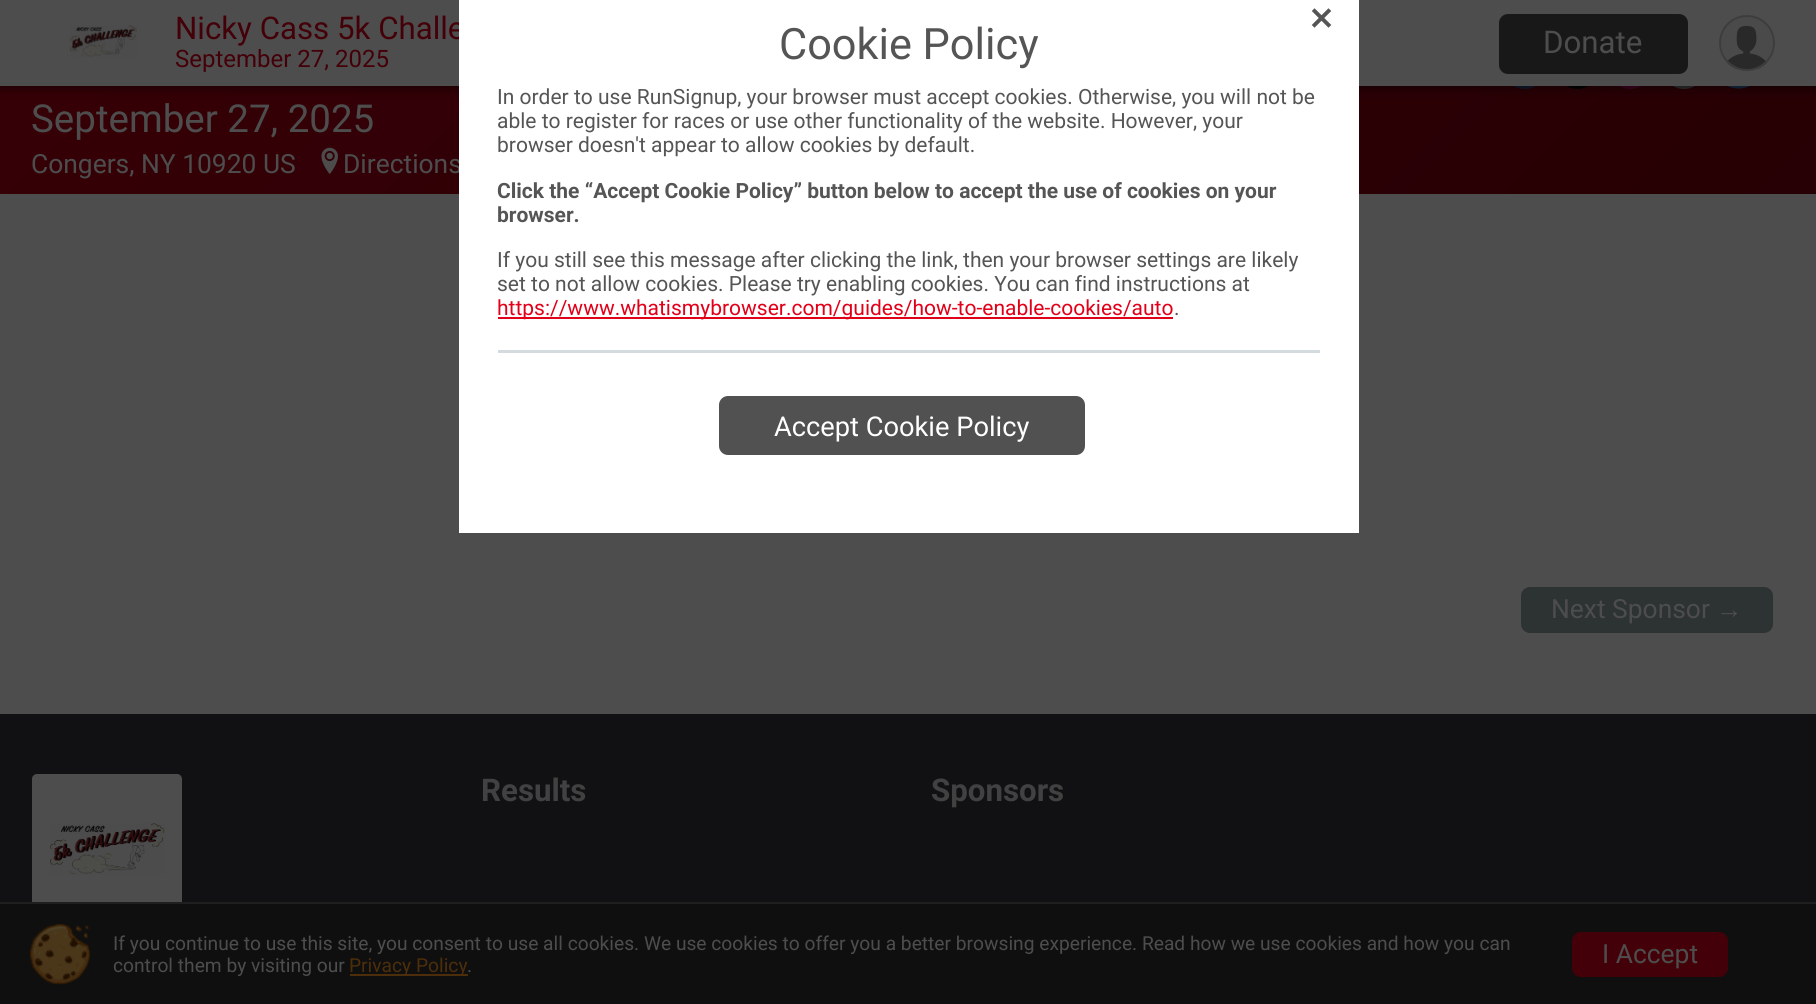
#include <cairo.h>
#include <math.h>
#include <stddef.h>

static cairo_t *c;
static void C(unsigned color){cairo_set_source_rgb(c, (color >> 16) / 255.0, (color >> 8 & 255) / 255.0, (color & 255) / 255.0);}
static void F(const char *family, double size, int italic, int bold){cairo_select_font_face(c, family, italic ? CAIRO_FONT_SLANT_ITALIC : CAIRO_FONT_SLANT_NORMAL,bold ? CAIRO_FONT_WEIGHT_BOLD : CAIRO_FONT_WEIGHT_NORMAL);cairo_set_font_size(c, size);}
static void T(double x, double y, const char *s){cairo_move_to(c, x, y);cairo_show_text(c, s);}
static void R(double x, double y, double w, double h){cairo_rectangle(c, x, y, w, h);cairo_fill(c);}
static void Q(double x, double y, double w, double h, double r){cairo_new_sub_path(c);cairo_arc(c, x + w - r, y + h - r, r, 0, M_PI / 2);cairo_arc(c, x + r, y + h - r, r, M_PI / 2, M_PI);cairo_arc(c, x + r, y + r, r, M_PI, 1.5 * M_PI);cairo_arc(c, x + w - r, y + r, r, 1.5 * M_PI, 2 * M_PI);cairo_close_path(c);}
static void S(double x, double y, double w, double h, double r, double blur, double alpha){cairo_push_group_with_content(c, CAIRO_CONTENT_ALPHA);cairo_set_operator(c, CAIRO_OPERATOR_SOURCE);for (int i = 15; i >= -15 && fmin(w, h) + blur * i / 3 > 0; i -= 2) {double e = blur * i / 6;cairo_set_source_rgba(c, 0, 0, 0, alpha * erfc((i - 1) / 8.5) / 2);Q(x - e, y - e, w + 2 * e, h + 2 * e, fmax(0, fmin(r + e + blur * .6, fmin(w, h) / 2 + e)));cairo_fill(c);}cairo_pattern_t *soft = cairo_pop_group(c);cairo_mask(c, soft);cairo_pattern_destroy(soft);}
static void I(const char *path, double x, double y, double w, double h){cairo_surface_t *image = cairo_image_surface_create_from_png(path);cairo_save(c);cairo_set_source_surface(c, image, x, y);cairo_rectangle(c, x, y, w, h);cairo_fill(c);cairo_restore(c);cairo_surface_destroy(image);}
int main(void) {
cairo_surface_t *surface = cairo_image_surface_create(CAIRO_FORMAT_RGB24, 1816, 1004);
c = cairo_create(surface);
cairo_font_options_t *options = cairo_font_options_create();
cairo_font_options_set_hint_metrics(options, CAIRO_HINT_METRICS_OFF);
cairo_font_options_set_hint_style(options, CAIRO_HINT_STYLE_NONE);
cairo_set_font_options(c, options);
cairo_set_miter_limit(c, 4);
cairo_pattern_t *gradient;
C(0x4d4d4d);
cairo_paint(c);
gradient = cairo_pattern_create_linear(1409,601,407,-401);
cairo_pattern_add_color_stop_rgba(gradient,0,0.149,0,0.016,1);
cairo_pattern_add_color_stop_rgba(gradient,1,0.212,0,0.024,1);
cairo_set_source(c,gradient);
cairo_pattern_destroy(gradient);
R(0,86,1816,108);
C(0x11192d);
Q(1503,44,44,45,22);
cairo_fill(c);
C(0x000000);
Q(1556,44,43,45,21.5);
cairo_fill(c);
C(0x40011f);
cairo_arc(c,1630.5,66.5,22.5,0,2 * M_PI);
cairo_fill(c);
C(0x2f2f2f);
Q(1662,44,44,45,22);
cairo_fill(c);
C(0x172c44);
cairo_new_path(c);
cairo_move_to(c,1738.5,43.5);
cairo_curve_to(c,1752,43.5,1762.5,53.5,1762.5,66);
cairo_curve_to(c,1762.5,78.5,1752,88.5,1738.5,88.5);
cairo_curve_to(c,1725,88.5,1714.5,78.5,1714.5,66);
cairo_curve_to(c,1714.5,53.5,1725,43.5,1738.5,43.5);
cairo_close_path(c);
cairo_fill(c);
C(0x000000);
S(-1,-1,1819,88,0,6,.6);
C(0x4d4d4d);
R(0,0,1816,86);
I("1.png",70,25,67,33);
F("Roboto",31.25,0,0);
C(0x440008);
T(175,39,"Nicky Cass 5k Challe");
F("Roboto",24,0,0);
T(175,67,"September 27, 2025");
C(0x181818);
Q(1499,14,189,60,9);
cairo_fill(c);
F("Roboto",31.25,0,0);
C(0x4d4d4d);
T(1543,53,"Donate");
I("2.png",1721,17,52,52);
cairo_arc(c,1747,43,27,0,2 * M_PI);
C(0x3d3d3d);
cairo_stroke(c);
F("Roboto",26.4,0,0);
C(0x4d4d4d);
T(343,173,"Directions");
cairo_rectangle(c,460,-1,898,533);
C(0xffffff);
cairo_stroke(c);
R(461,0,896,531);
I("3.png",1311,8,21,20);
F("Roboto",43.25,0,0);
C(0x555555);
T(779,59,"Cookie Policy");
F("Roboto",21,0,0);
T(497,104,"In order to use RunSignup, your browser must accept cookies. Otherwise, you will not be");
T(497,128,"able to register for races or use other functionality of the website. However, your");
T(497,152,"browser doesn't appear to allow cookies by default.");
F("Roboto",21,0,1);
T(497,198,"Click the “Accept Cookie Policy” button below to accept the use of cookies on your");
T(497,222,"browser.");
F("Roboto",21,0,0);
T(497,267,"If you still see this message after clicking the link, then your browser settings are likely");
T(497,291,"set to not allow cookies. Please try enabling cookies. You can find instructions at");
C(0xe20019);
R(498,317,675,2);
T(497,315,"https://www.whatismybrowser.com/guides/how-to-enable-cookies/auto");
C(0x555555);
T(1174,315,".");
C(0xd3dbdf);
R(498,350,822,3);
C(0x515151);
Q(719,396,366,59,9);
cairo_fill(c);
F("Roboto",27.25,0,0);
C(0xffffff);
T(774,436,"Accept Cookie Policy");
F("Roboto",38.5,0,0);
C(0x4d4d4d);
T(31,132,"September 27, 2025");
F("Roboto",26.4,0,0);
T(31,173,"Congers, NY 10920 US");
I("4.png",321,147,17,27);
C(0x2d3232);
Q(1521,587,252,46,9);
cairo_fill(c);
C(0x4d4d4d);
T(1551,618,"Next Sponsor");
F("Liberation Sans",26.4,0,0);
T(1716,618,"→");
C(0x111113);
R(0,714,1816,188);
C(0x4d4d4d);
Q(32,774,150,150,5);
cairo_fill(c);
I("5.png",50,823,115,52);
F("Roboto",31.25,0,1);
C(0x414141);
T(481,801,"Results");
T(931,801,"Sponsors");
C(0x0f0f0f);
R(0,904,1816,100);
C(0x1f1f1f);
R(0,902,1816,2);
I("6.png",30,924,60,61);
F("Roboto",19.2,0,0);
C(0x4d4d4d);
T(113,950,"If you continue to use this site, you consent to use all cookies. We use cookies to offer you a better browsing experience. Read how we use cookies and how you can");
T(113,972,"control them by visiting our");
C(0x4c2e0b);
R(350,974,118,2);
T(349,972,"Privacy Policy");
C(0x4d4d4d);
T(467,972,".");
C(0x440008);
Q(1572,932,156,45,9);
cairo_fill(c);
F("Roboto",26.4,0,0);
C(0x4d4d4d);
T(1602,963,"I Accept");
cairo_surface_write_to_png(surface, "o.png");
cairo_font_options_destroy(options);
cairo_destroy(c);
cairo_surface_destroy(surface);
return 0;
}
